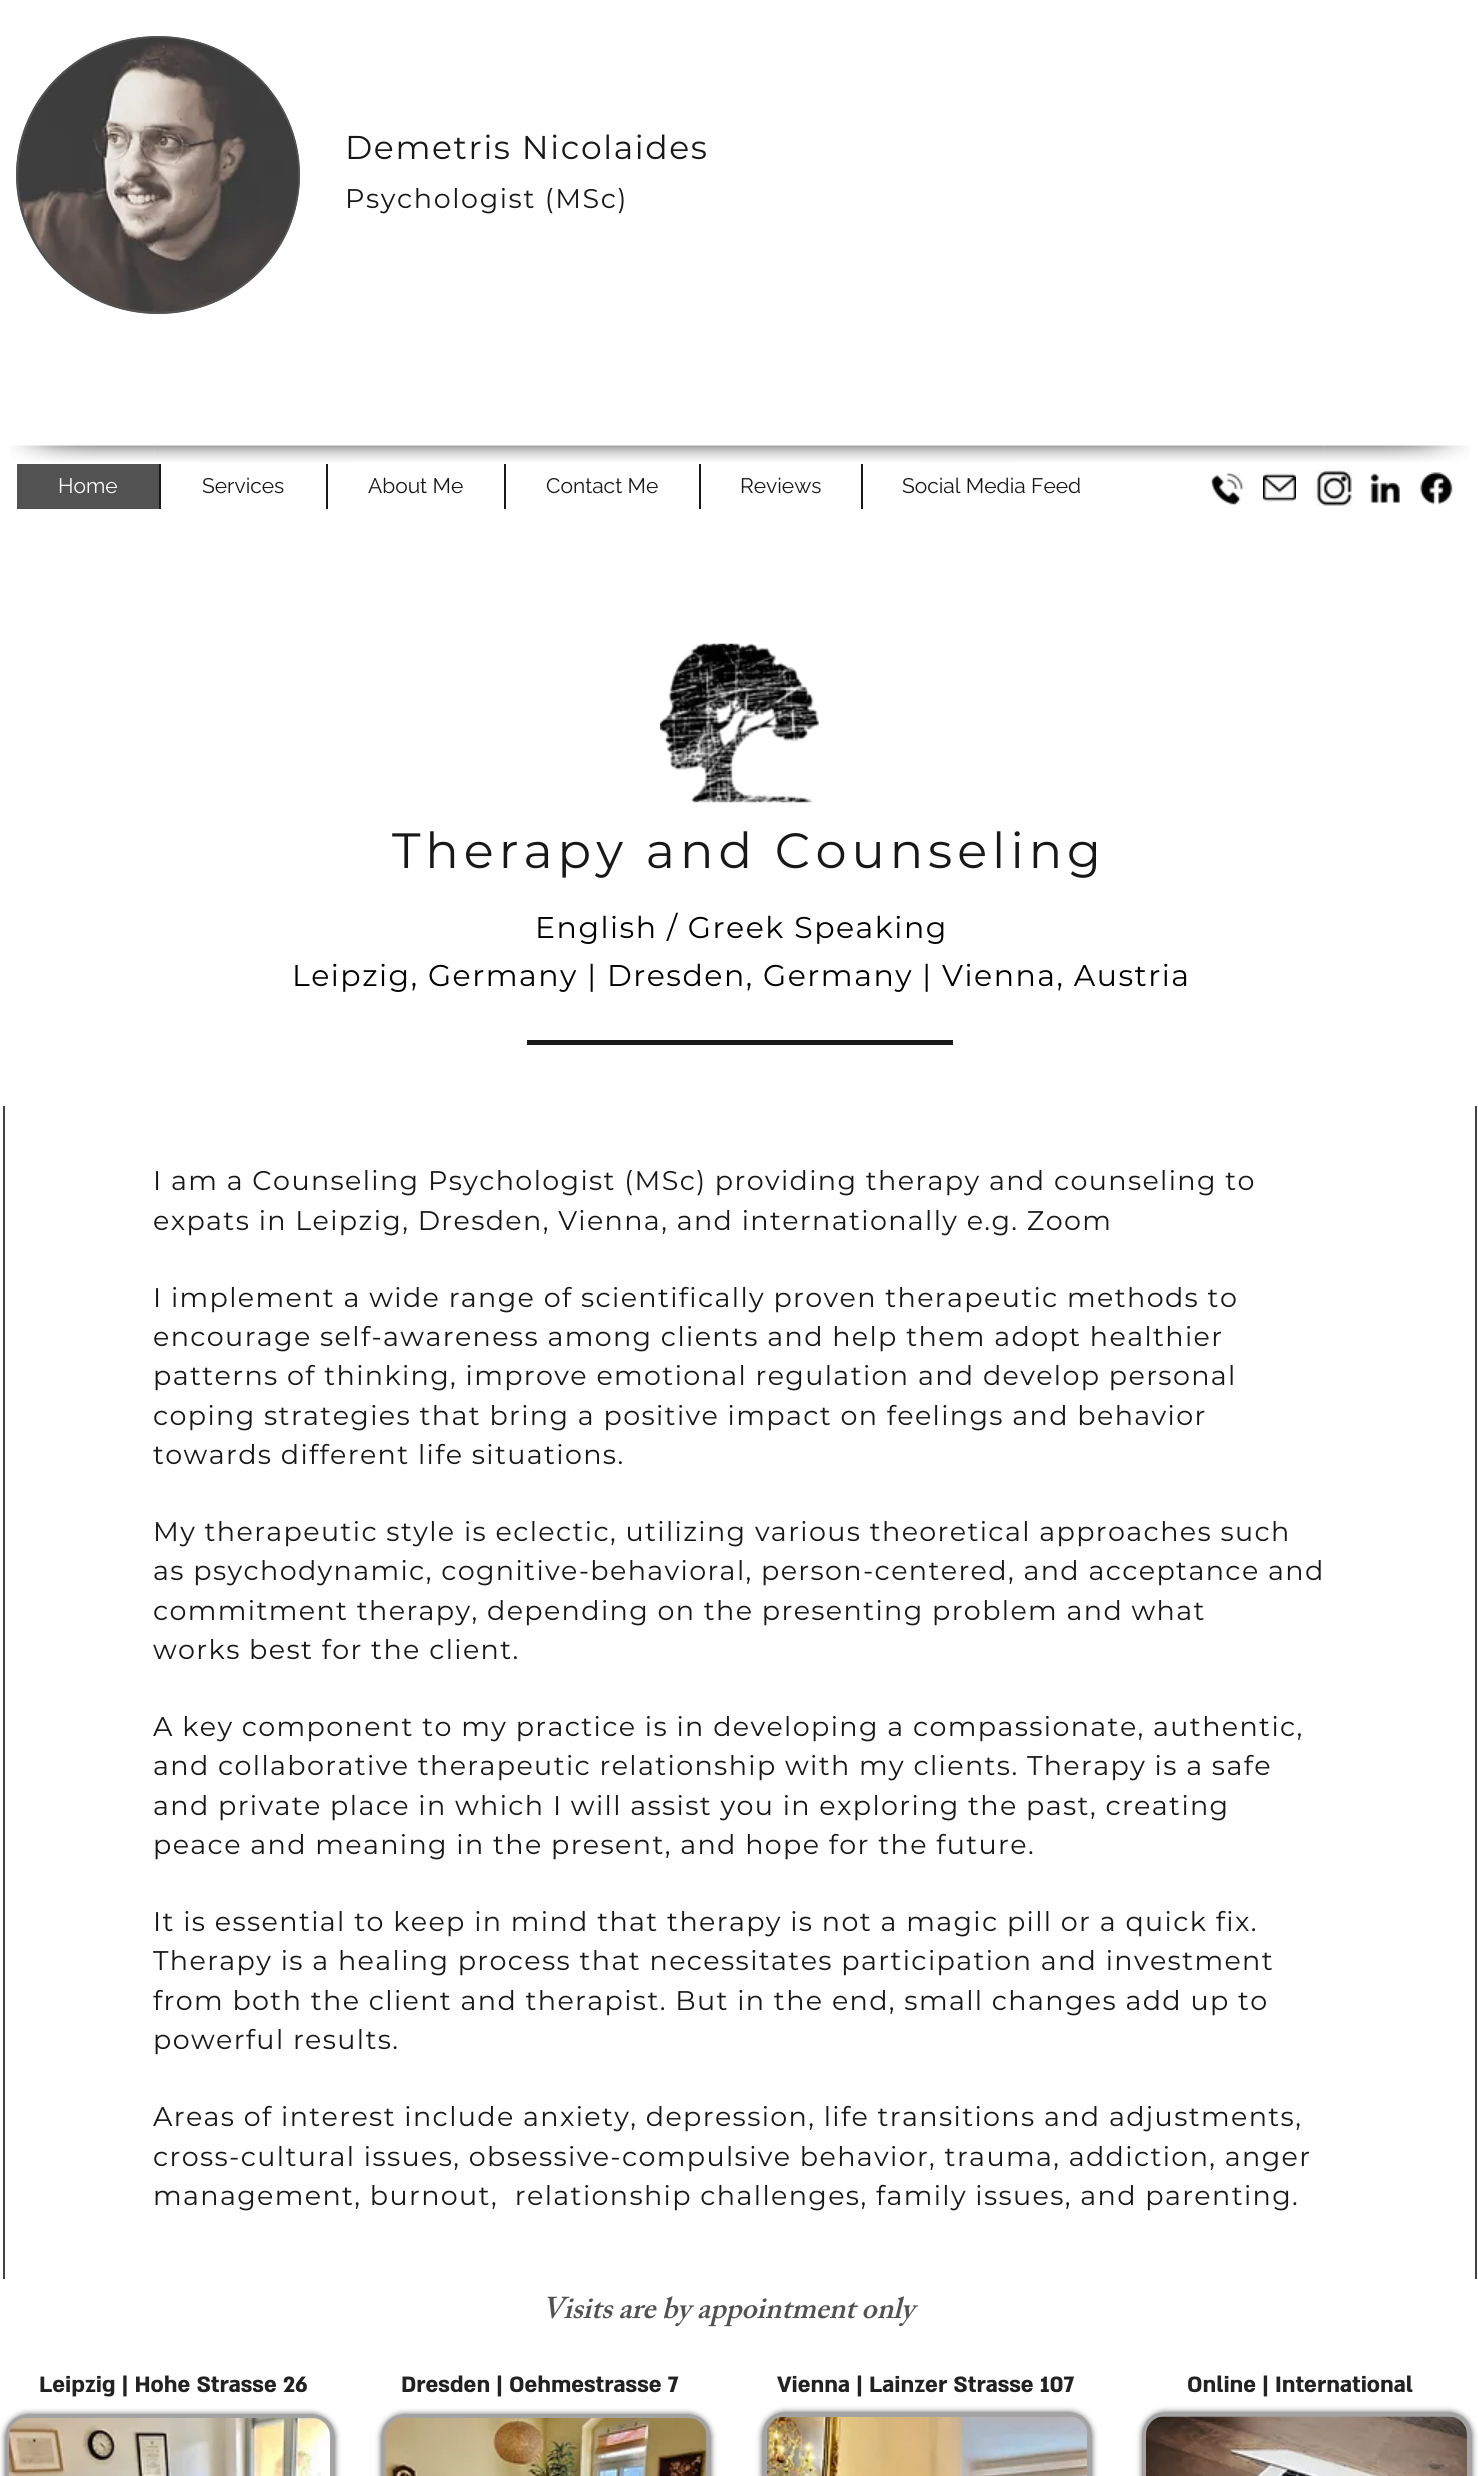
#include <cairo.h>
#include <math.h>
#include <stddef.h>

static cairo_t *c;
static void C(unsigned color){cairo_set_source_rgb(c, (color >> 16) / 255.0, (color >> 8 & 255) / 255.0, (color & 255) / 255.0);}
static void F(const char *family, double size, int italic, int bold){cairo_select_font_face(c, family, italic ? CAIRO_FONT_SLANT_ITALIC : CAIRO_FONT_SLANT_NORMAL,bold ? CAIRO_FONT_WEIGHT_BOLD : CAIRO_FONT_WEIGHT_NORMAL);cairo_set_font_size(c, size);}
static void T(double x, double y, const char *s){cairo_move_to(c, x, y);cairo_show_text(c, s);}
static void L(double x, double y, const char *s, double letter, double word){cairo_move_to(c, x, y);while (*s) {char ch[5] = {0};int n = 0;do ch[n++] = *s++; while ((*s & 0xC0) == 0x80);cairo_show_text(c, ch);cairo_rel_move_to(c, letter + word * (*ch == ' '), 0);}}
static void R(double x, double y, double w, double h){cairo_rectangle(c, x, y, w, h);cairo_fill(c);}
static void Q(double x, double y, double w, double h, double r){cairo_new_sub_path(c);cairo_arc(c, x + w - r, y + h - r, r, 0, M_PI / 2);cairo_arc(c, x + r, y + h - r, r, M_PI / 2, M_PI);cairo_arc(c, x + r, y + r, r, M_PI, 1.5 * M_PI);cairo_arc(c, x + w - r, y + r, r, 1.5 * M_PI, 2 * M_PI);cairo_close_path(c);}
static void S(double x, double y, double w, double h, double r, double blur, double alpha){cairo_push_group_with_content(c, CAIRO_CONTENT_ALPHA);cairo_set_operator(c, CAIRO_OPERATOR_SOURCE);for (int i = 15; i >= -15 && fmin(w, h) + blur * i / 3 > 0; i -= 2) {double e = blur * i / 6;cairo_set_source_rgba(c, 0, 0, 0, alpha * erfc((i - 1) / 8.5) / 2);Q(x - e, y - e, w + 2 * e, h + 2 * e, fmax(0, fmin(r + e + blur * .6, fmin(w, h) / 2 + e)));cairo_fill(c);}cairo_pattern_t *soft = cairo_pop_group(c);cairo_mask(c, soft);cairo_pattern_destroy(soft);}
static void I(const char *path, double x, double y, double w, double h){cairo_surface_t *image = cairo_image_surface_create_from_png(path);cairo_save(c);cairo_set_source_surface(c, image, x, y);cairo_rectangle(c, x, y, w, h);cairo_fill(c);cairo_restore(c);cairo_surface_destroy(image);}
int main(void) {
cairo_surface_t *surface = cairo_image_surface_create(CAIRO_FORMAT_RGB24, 1478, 2476);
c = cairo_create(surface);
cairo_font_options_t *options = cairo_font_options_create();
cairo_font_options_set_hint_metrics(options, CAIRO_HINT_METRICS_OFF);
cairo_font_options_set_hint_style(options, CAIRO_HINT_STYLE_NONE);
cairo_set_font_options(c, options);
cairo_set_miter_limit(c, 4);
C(0xffffff);
cairo_paint(c);
C(0x525252);
cairo_new_path(c);
cairo_move_to(c,158,36);
cairo_curve_to(c,236.5,36,300,98,300,175);
cairo_curve_to(c,300,252,236.5,314,158,314);
cairo_curve_to(c,79.5,314,16,252,16,175);
cairo_curve_to(c,16,98,79.5,36,158,36);
cairo_close_path(c);
cairo_fill(c);
cairo_new_path(c);
cairo_move_to(c,158,37);
cairo_curve_to(c,236,37,299,98.5,299,175);
cairo_curve_to(c,299,251,236,313,158,313);
cairo_curve_to(c,80.5,313,17,251,17,175);
cairo_curve_to(c,17,98.5,80.5,37,158,37);
cairo_close_path(c);
cairo_set_line_width(c,1.5);
cairo_stroke(c);
I("1.png",18,38,280,274);
F("Montserrat",33,0,0);
C(0x181818);
L(345,159,"Demetris Nicolaides",1.6,0);
F("Montserrat",27,0,0);
L(345,208,"Psychologist (MSc)",1.6,0);
I("3.png",154,445,1171,17);
I("2.png",10,445,145,17);
I("4.png",1324,445,145,17);
C(0x525252);
R(17,464,142,45);
F("Raleway",21,0,0);
C(0xffffff);
T(58,493,"Home");
C(0x181818);
R(159,464,2,45);
T(202,493,"Services");
R(326,464,2,45);
T(368,493,"About Me");
R(504,464,2,45);
T(546,493,"Contact Me");
R(699,464,2,45);
T(740,493,"Reviews");
R(861,464,2,45);
T(902,493,"Social Media Feed");
I("5.png",1211,472,33,34);
I("6.png",1263,473,33,29);
I("7.png",1314,468,39,39);
I("8.png",1370,473,30,30);
I("9.png",1420,472,33,33);
I("10.png",660,643,159,160);
F("Montserrat",49.5,0,0);
L(392,868,"Therapy and Counseling",4.95,0);
F("Montserrat",30,0,0);
C(0x000000);
L(535,938,"English / Greek Speaking",1.5,0);
L(292,986,"Leipzig, Germany | Dresden, Germany | Vienna, Austria",1.5,0);
C(0x181818);
R(527,1040,426,5);
C(0x424242);
R(3,1106,2,1173);
F("Montserrat",27,0,0);
C(0x181818);
L(153,1190,"I am a Counseling Psychologist (MSc) providing therapy and counseling to",1.35,0);
L(153,1230,"expats in Leipzig, Dresden, Vienna, and internationally e.g. Zoom",1.35,0);
L(153,1307,"I implement a wide range of scientifically proven therapeutic methods to",1.35,0);
L(153,1346,"encourage self-awareness among clients and help them adopt healthier",1.35,0);
L(153,1385,"patterns of thinking, improve emotional regulation and develop personal",1.35,0);
L(153,1425,"coping strategies that bring a positive impact on feelings and behavior",1.35,0);
L(153,1464,"towards different life situations.",1.35,0);
L(153,1541,"My therapeutic style is eclectic, utilizing various theoretical approaches such",1.35,0);
L(153,1580,"as psychodynamic, cognitive-behavioral, person-centered, and acceptance and",1.35,0);
L(153,1620,"commitment therapy, depending on the presenting problem and what",1.35,0);
L(153,1659,"works best for the client.",1.35,0);
L(153,1736,"A key component to my practice is in developing a compassionate, authentic,",1.35,0);
L(153,1775,"and collaborative therapeutic relationship with my clients. Therapy is a safe",1.35,0);
L(153,1815,"and private place in which I will assist you in exploring the past, creating",1.35,0);
L(153,1854,"peace and meaning in the present, and hope for the future.",1.35,0);
L(153,1931,"It is essential to keep in mind that therapy is not a magic pill or a quick fix.",1.35,0);
L(153,1970,"Therapy is a healing process that necessitates participation and investment",1.35,0);
L(153,2010,"from both the client and therapist. But in the end, small changes add up to",1.35,0);
L(153,2049,"powerful results.",1.35,0);
L(153,2126,"Areas of interest include anxiety, depression, life transitions and adjustments,",1.35,0);
L(153,2166,"cross-cultural issues, obsessive-compulsive behavior, trauma, addiction, anger",1.35,0);
L(153,2205,"management, burnout,  relationship challenges, family issues, and parenting.",1.35,0);
C(0x424242);
R(1475,1106,2,1173);
F("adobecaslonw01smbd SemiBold",30,1,0);
C(0x525252);
T(542,2318,"Visits are by appointment only");
F("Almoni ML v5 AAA",25.5,0,1);
C(0x222222);
T(39,2392,"Leipzig | Hohe Strasse 26");
T(401,2392,"Dresden | Oehmestrasse 7");
T(777,2392,"Vienna | Lainzer Strasse 107");
T(1187,2392,"Online | International");
cairo_save(c);
cairo_set_fill_rule(c,CAIRO_FILL_RULE_EVEN_ODD);
cairo_new_path(c);
cairo_move_to(c,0,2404);
cairo_line_to(c,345,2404);
cairo_line_to(c,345,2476);
cairo_line_to(c,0,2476);
cairo_close_path(c);
cairo_move_to(c,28,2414);
cairo_line_to(c,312,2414);
cairo_curve_to(c,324.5,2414,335,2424.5,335,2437);
cairo_line_to(c,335,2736);
cairo_curve_to(c,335,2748.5,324.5,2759,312,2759);
cairo_line_to(c,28,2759);
cairo_curve_to(c,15.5,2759,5,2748.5,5,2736);
cairo_line_to(c,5,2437);
cairo_curve_to(c,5,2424.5,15.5,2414,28,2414);
cairo_close_path(c);
cairo_clip(c);
C(0x000000);
S(5,2414,330,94,23,3,.6);
cairo_restore(c);
cairo_set_source_rgba(c,0,0,0,0.2);
Q(5,2414,330,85,23);
cairo_fill(c);
Q(7.5,2416.5,325,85,20.5);
cairo_set_line_width(c,5);
cairo_stroke(c);
I("11.png",9,2418,321,58);
cairo_save(c);
cairo_set_fill_rule(c,CAIRO_FILL_RULE_EVEN_ODD);
cairo_new_path(c);
cairo_move_to(c,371,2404);
cairo_line_to(c,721,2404);
cairo_line_to(c,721,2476);
cairo_line_to(c,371,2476);
cairo_close_path(c);
cairo_move_to(c,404,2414);
cairo_line_to(c,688,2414);
cairo_curve_to(c,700.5,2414,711,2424.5,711,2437);
cairo_line_to(c,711,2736);
cairo_curve_to(c,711,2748.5,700.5,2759,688,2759);
cairo_line_to(c,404,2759);
cairo_curve_to(c,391.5,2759,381,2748.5,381,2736);
cairo_line_to(c,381,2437);
cairo_curve_to(c,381,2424.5,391.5,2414,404,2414);
cairo_close_path(c);
cairo_clip(c);
C(0x000000);
S(381,2414,330,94,23,3,.6);
cairo_restore(c);
Q(381,2414,330,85,23);
cairo_fill(c);
Q(383.5,2416.5,325,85,20.5);
cairo_stroke(c);
I("12.png",385,2418,322,58);
cairo_save(c);
cairo_set_fill_rule(c,CAIRO_FILL_RULE_EVEN_ODD);
cairo_new_path(c);
cairo_move_to(c,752,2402);
cairo_line_to(c,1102,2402);
cairo_line_to(c,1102,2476);
cairo_line_to(c,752,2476);
cairo_close_path(c);
cairo_move_to(c,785,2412);
cairo_line_to(c,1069,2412);
cairo_curve_to(c,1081.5,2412,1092,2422.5,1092,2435);
cairo_line_to(c,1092,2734);
cairo_curve_to(c,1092,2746.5,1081.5,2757,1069,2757);
cairo_line_to(c,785,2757);
cairo_curve_to(c,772.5,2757,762,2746.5,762,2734);
cairo_line_to(c,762,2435);
cairo_curve_to(c,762,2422.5,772.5,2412,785,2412);
cairo_close_path(c);
cairo_clip(c);
C(0x000000);
S(762,2412,330,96,23,3,.6);
cairo_restore(c);
Q(762,2412,330,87,23);
cairo_fill(c);
Q(764.5,2414.5,325,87,20.5);
cairo_stroke(c);
I("13.png",767,2417,320,59);
cairo_save(c);
cairo_set_fill_rule(c,CAIRO_FILL_RULE_EVEN_ODD);
cairo_new_path(c);
cairo_move_to(c,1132,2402);
cairo_line_to(c,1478,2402);
cairo_line_to(c,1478,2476);
cairo_line_to(c,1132,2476);
cairo_close_path(c);
cairo_move_to(c,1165,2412);
cairo_line_to(c,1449,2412);
cairo_curve_to(c,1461.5,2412,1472,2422.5,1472,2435);
cairo_line_to(c,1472,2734);
cairo_curve_to(c,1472,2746.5,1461.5,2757,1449,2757);
cairo_line_to(c,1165,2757);
cairo_curve_to(c,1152.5,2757,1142,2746.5,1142,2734);
cairo_line_to(c,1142,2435);
cairo_curve_to(c,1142,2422.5,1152.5,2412,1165,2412);
cairo_close_path(c);
cairo_clip(c);
C(0x000000);
S(1142,2412,330,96,23,3,.6);
cairo_restore(c);
Q(1142,2412,330,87,23);
cairo_fill(c);
Q(1144.5,2414.5,325,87,20.5);
cairo_stroke(c);
I("14.png",1146,2416,321,60);
cairo_surface_write_to_png(surface, "o.png");
cairo_font_options_destroy(options);
cairo_destroy(c);
cairo_surface_destroy(surface);
return 0;
}
